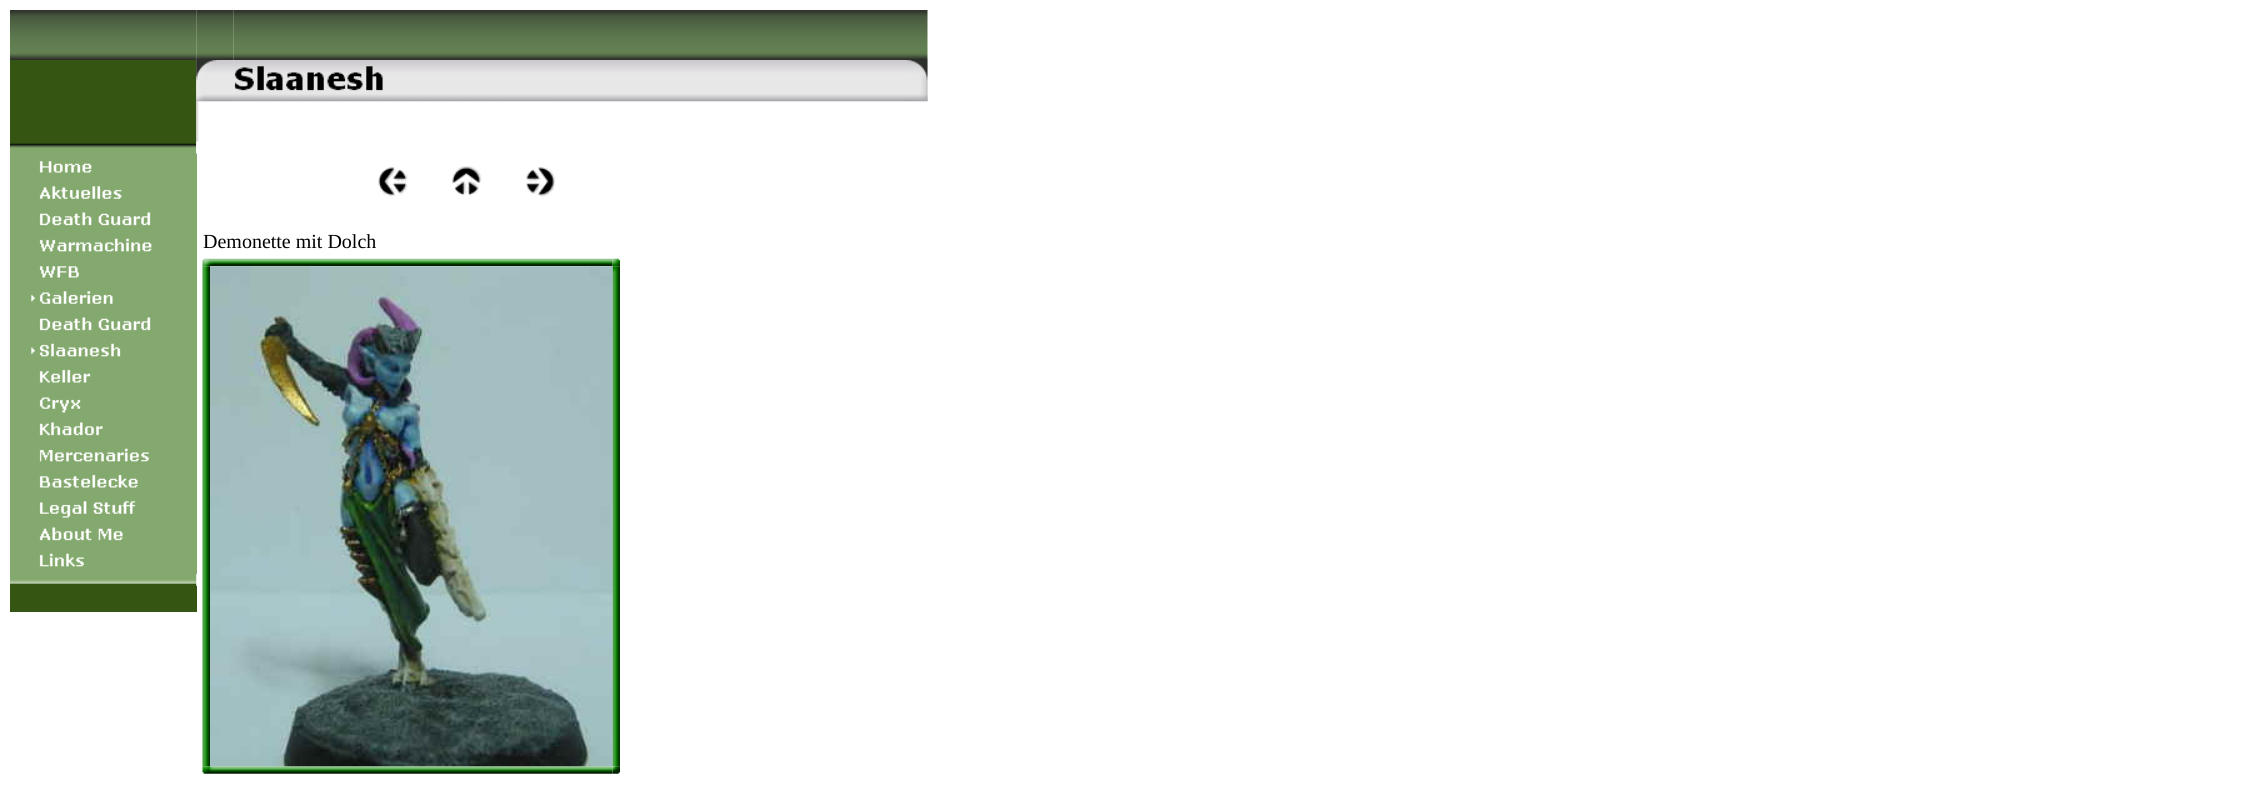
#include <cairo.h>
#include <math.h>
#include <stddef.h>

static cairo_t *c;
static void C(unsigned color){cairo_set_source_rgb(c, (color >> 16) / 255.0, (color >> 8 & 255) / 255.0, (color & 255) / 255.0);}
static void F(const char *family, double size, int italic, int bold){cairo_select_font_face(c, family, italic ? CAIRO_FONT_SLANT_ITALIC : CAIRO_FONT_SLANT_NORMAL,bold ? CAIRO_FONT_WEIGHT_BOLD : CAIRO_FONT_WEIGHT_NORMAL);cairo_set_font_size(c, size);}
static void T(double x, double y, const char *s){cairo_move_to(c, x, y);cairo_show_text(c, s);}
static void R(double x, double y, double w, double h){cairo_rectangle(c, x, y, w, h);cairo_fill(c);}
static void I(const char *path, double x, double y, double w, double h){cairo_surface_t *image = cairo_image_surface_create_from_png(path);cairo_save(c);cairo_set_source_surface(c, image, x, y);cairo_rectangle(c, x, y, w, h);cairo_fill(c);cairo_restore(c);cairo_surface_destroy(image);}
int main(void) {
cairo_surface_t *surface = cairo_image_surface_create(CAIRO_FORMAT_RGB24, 2241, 791);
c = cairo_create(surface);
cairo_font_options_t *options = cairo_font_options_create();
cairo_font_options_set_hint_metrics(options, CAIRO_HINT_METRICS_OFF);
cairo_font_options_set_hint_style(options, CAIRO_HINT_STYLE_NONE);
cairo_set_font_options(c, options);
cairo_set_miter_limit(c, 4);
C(0xffffff);
cairo_paint(c);
I("1.png",10,10,187,50);
C(0x355612);
R(10,60,187,82);
I("2.png",10,141,187,12);
C(0x84a96e);
R(10,153,187,421);
I("3.png",39,161,53,12);
I("4.png",39,186,83,13);
I("5.png",39,212,112,14);
I("6.png",39,238,113,14);
I("7.png",39,266,40,12);
I("8.png",31,291,82,13);
I("5.png",39,317,112,14);
I("9.png",31,343,90,14);
I("10.png",39,369,52,14);
I("11.png",39,397,42,16);
I("12.png",39,422,64,14);
I("13.png",39,448,110,14);
I("14.png",39,474,99,14);
I("15.png",39,501,97,17);
I("16.png",39,527,84,14);
I("17.png",39,553,45,14);
I("18.png",10,574,187,12);
C(0x355612);
R(10,586,187,26);
I("19.png",196,10,38,50);
I("20.png",233,10,657,50);
I("21.png",890,10,38,50);
I("22.png",196,60,38,94);
I("24.png",233,60,657,42);
I("23.png",196,60,38,82);
I("25.png",234,66,149,25);
I("26.png",890,60,38,42);
I("27.png",906,60,22,42);
I("28.png",378,167,30,30);
I("29.png",452,166,30,30);
I("30.png",526,167,29,30);
F("Liberation Serif",20,0,0);
C(0x000000);
T(203,248,"Demonette mit Dolch");
I("34.png",202,266,8,501);
I("31.png",202,258,8,9);
I("32.png",210,258,403,8);
C(0xdedede);
R(210,266,403,500);
I("36.png",612,266,8,501);
I("33.png",612,258,8,9);
I("38.png",210,766,403,8);
I("35.png",210,266,403,501);
I("37.png",202,766,8,8);
I("39.png",612,766,8,8);
cairo_surface_write_to_png(surface, "o.png");
cairo_font_options_destroy(options);
cairo_destroy(c);
cairo_surface_destroy(surface);
return 0;
}
